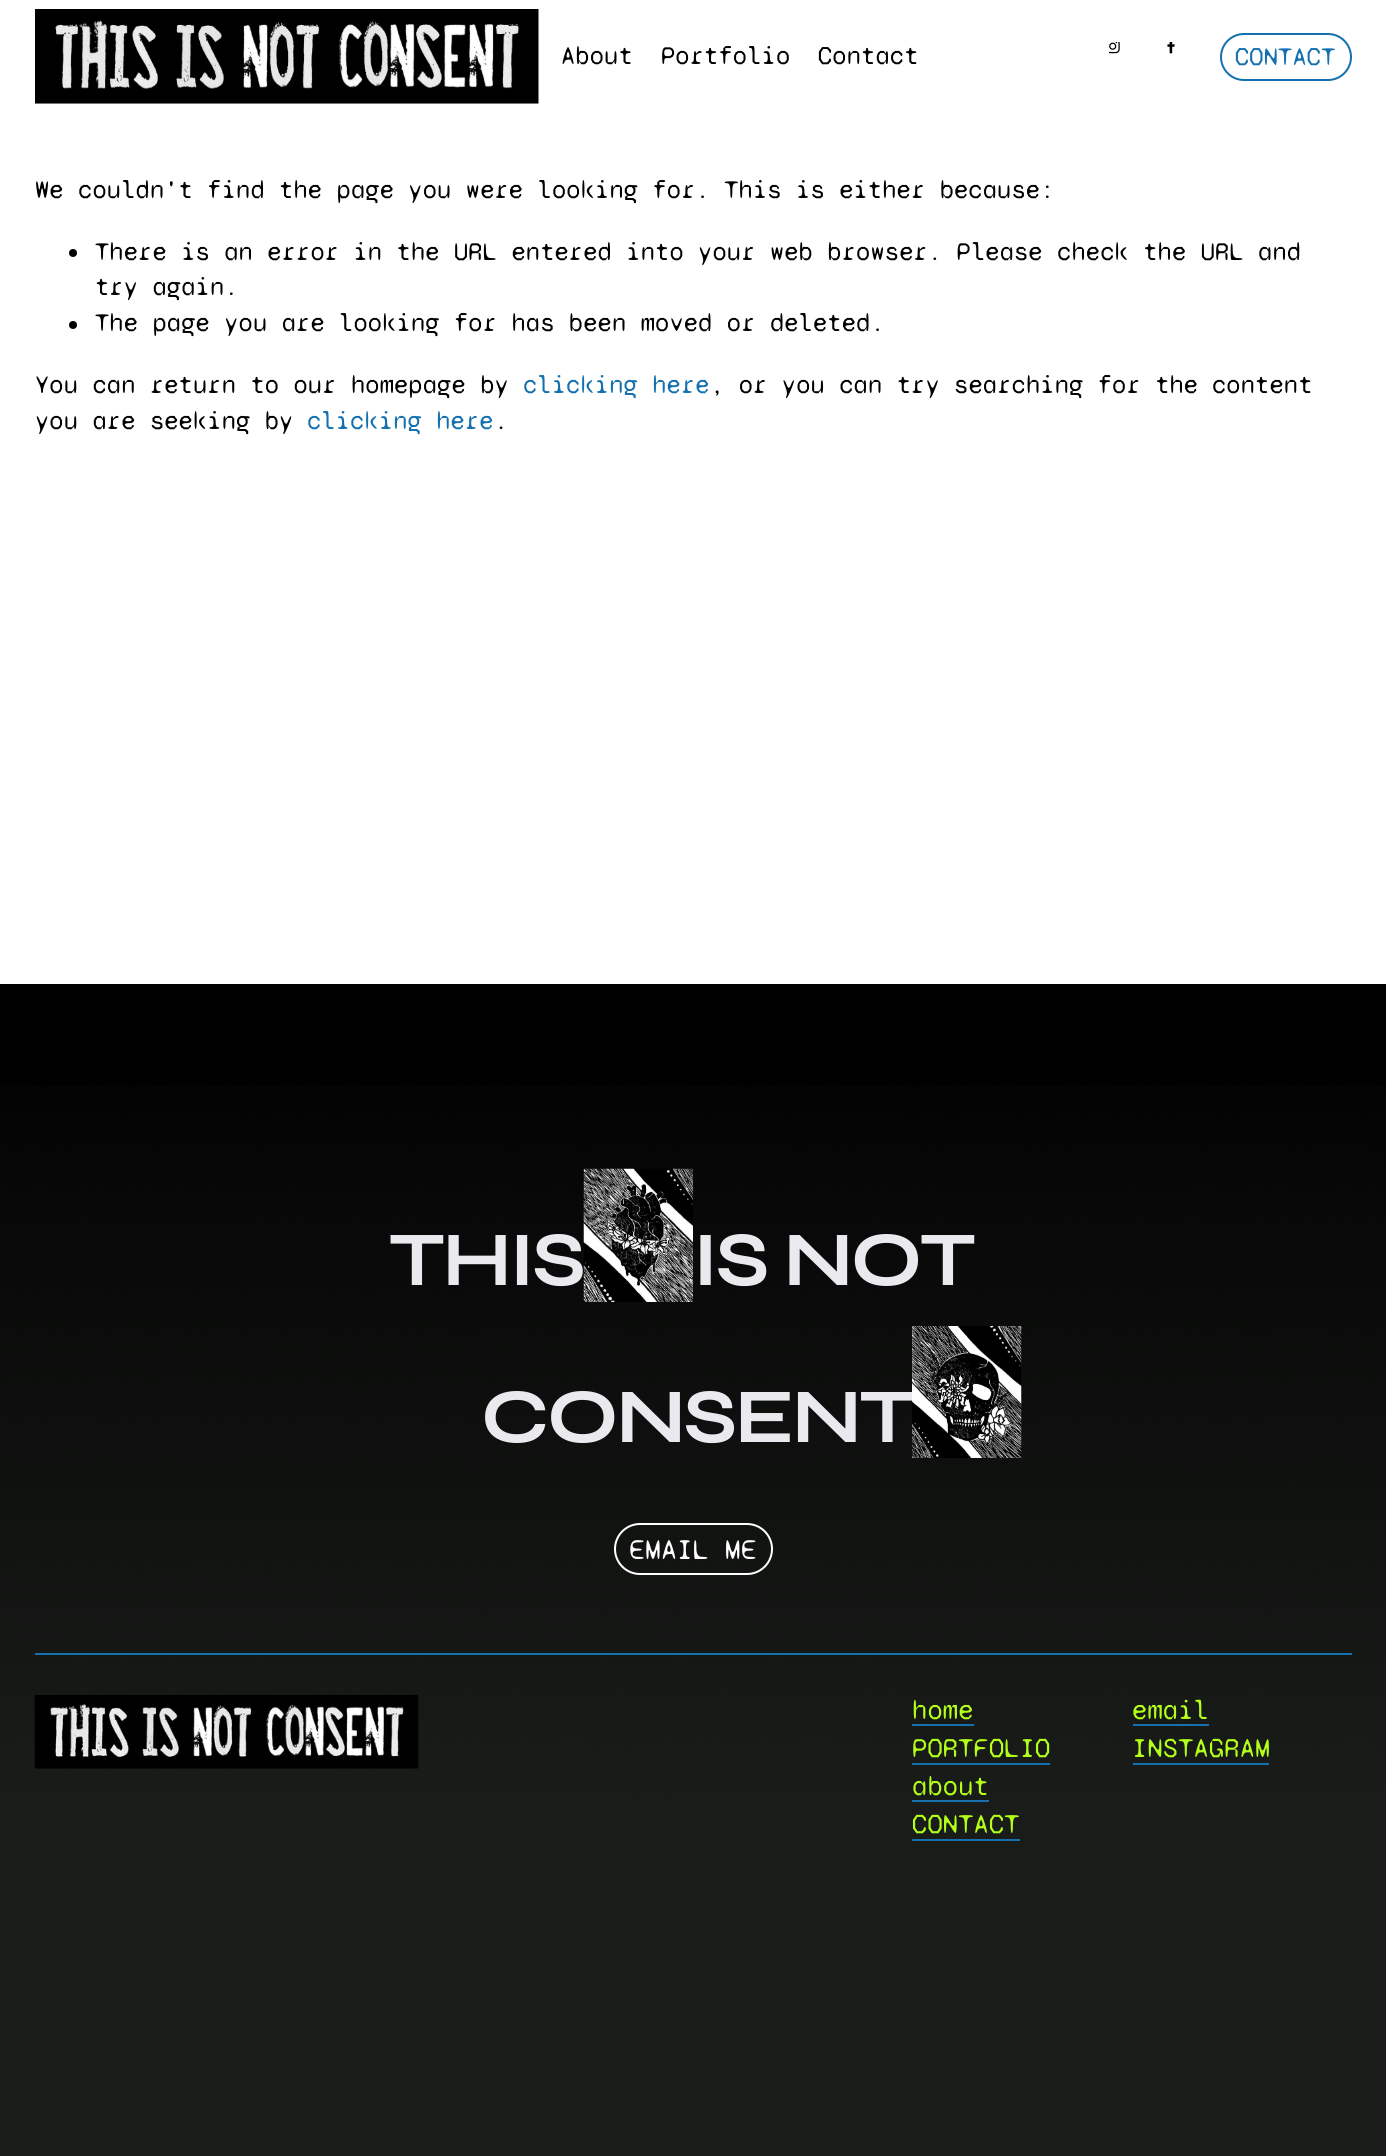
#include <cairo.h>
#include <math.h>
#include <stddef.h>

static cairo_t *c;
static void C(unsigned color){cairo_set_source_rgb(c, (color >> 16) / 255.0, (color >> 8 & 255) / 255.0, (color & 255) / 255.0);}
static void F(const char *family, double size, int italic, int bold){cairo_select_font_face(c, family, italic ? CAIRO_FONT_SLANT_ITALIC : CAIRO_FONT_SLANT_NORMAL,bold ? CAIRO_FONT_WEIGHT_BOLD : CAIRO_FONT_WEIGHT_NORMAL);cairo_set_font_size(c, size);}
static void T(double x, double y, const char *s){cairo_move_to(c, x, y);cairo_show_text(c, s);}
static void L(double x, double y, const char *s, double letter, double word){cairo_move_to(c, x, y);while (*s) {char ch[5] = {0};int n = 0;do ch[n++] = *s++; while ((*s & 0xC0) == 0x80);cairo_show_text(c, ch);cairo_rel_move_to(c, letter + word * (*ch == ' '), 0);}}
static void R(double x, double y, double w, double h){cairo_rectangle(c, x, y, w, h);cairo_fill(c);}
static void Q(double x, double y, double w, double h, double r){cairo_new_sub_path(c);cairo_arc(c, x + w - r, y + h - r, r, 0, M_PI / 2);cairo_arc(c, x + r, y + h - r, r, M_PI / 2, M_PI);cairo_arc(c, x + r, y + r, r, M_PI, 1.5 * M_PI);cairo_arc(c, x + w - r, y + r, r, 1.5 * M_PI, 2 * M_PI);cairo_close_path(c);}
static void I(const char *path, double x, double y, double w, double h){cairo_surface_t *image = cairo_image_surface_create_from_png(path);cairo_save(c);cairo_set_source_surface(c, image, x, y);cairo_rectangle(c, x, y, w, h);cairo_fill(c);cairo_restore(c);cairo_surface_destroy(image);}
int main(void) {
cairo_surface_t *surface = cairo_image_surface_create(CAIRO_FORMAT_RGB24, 1386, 2156);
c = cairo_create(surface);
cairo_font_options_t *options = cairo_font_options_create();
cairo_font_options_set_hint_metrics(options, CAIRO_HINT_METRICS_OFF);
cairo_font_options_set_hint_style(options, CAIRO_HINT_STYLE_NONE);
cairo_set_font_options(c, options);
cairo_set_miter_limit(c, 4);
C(0xffffff);
cairo_paint(c);
I("1.png",35,9,504,95);
F("Syne Mono",25.65,0,0);
C(0x000000);
L(561,64,"About",.25,0);
L(661,64,"Portfolio",.25,0);
L(818,64,"Contact",.25,0);
I("2.png",1109,42,11,12);
I("3.png",1167,42,8,12);
Q(1221,34,130,46,23);
C(0x1470af);
cairo_stroke(c);
L(1235,65,"CONTACT",.25,0);
C(0x000000);
L(35,198,"We couldn't find the page you were looking for. This is either because:",.25,0);
cairo_new_path(c);
cairo_arc(c,73,253,4,0,2 * M_PI);
cairo_fill(c);
L(95,260,"There is an error in the URL entered into your web browser. Please check the URL and",.25,0);
L(95,295,"try again.",.25,0);
cairo_new_path(c);
cairo_arc(c,73,325,4,0,2 * M_PI);
cairo_fill(c);
L(95,331,"The page you are looking for has been moved or deleted.",.25,0);
L(35,393,"You can return to our homepage by",.25,0);
C(0x1470af);
L(523,393,"clicking here",.25,0);
C(0x000000);
L(710,393,", or you can try searching for the",.25,0);
L(1212,393,"content",.25,0);
L(35,429,"you are seeking by",.25,0);
C(0x1470af);
L(307,429,"clicking here",.25,0);
C(0x000000);
L(494,429,".",.25,0);
R(0,984,1386,101);
I("4.png",0,1085,1386,1071);
F("Syne",77.25,0,1);
C(0xeaeaee);
L(389,1285,"THIS",-2.25,0);
I("5.png",583,1168,110,134);
L(693,1285,"IS NOT",-2.25,0);
L(481,1442,"CONSENT",-2.25,0);
I("6.png",912,1326,110,132);
Q(615,1524,157,50,25);
C(0xffffff);
cairo_stroke(c);
F("Syne Mono",29,0,0);
T(629,1559,"EMAIL ME");
C(0x1470af);
R(35,1653,1317,2);
I("7.png",34,1695,385,74);
F("Syne Mono",27.5,0,0);
C(0xb4ff1a);
L(912,1719,"home",.25,0);
C(0x1470af);
R(912,1724,62,2);
C(0xb4ff1a);
L(912,1757,"PORTFOLIO",.25,0);
C(0x1470af);
R(912,1763,138,2);
C(0xb4ff1a);
L(912,1795,"about",.25,0);
C(0x1470af);
R(912,1800,77,2);
C(0xb4ff1a);
L(912,1833,"CONTACT",.25,0);
C(0x1470af);
R(912,1839,108,2);
C(0xb4ff1a);
L(1132,1719,"email",.25,0);
C(0x1470af);
R(1133,1724,76,2);
C(0xb4ff1a);
L(1132,1757,"INSTAGRAM",.25,0);
C(0x1470af);
R(1133,1763,136,2);
cairo_surface_write_to_png(surface, "o.png");
cairo_font_options_destroy(options);
cairo_destroy(c);
cairo_surface_destroy(surface);
return 0;
}
